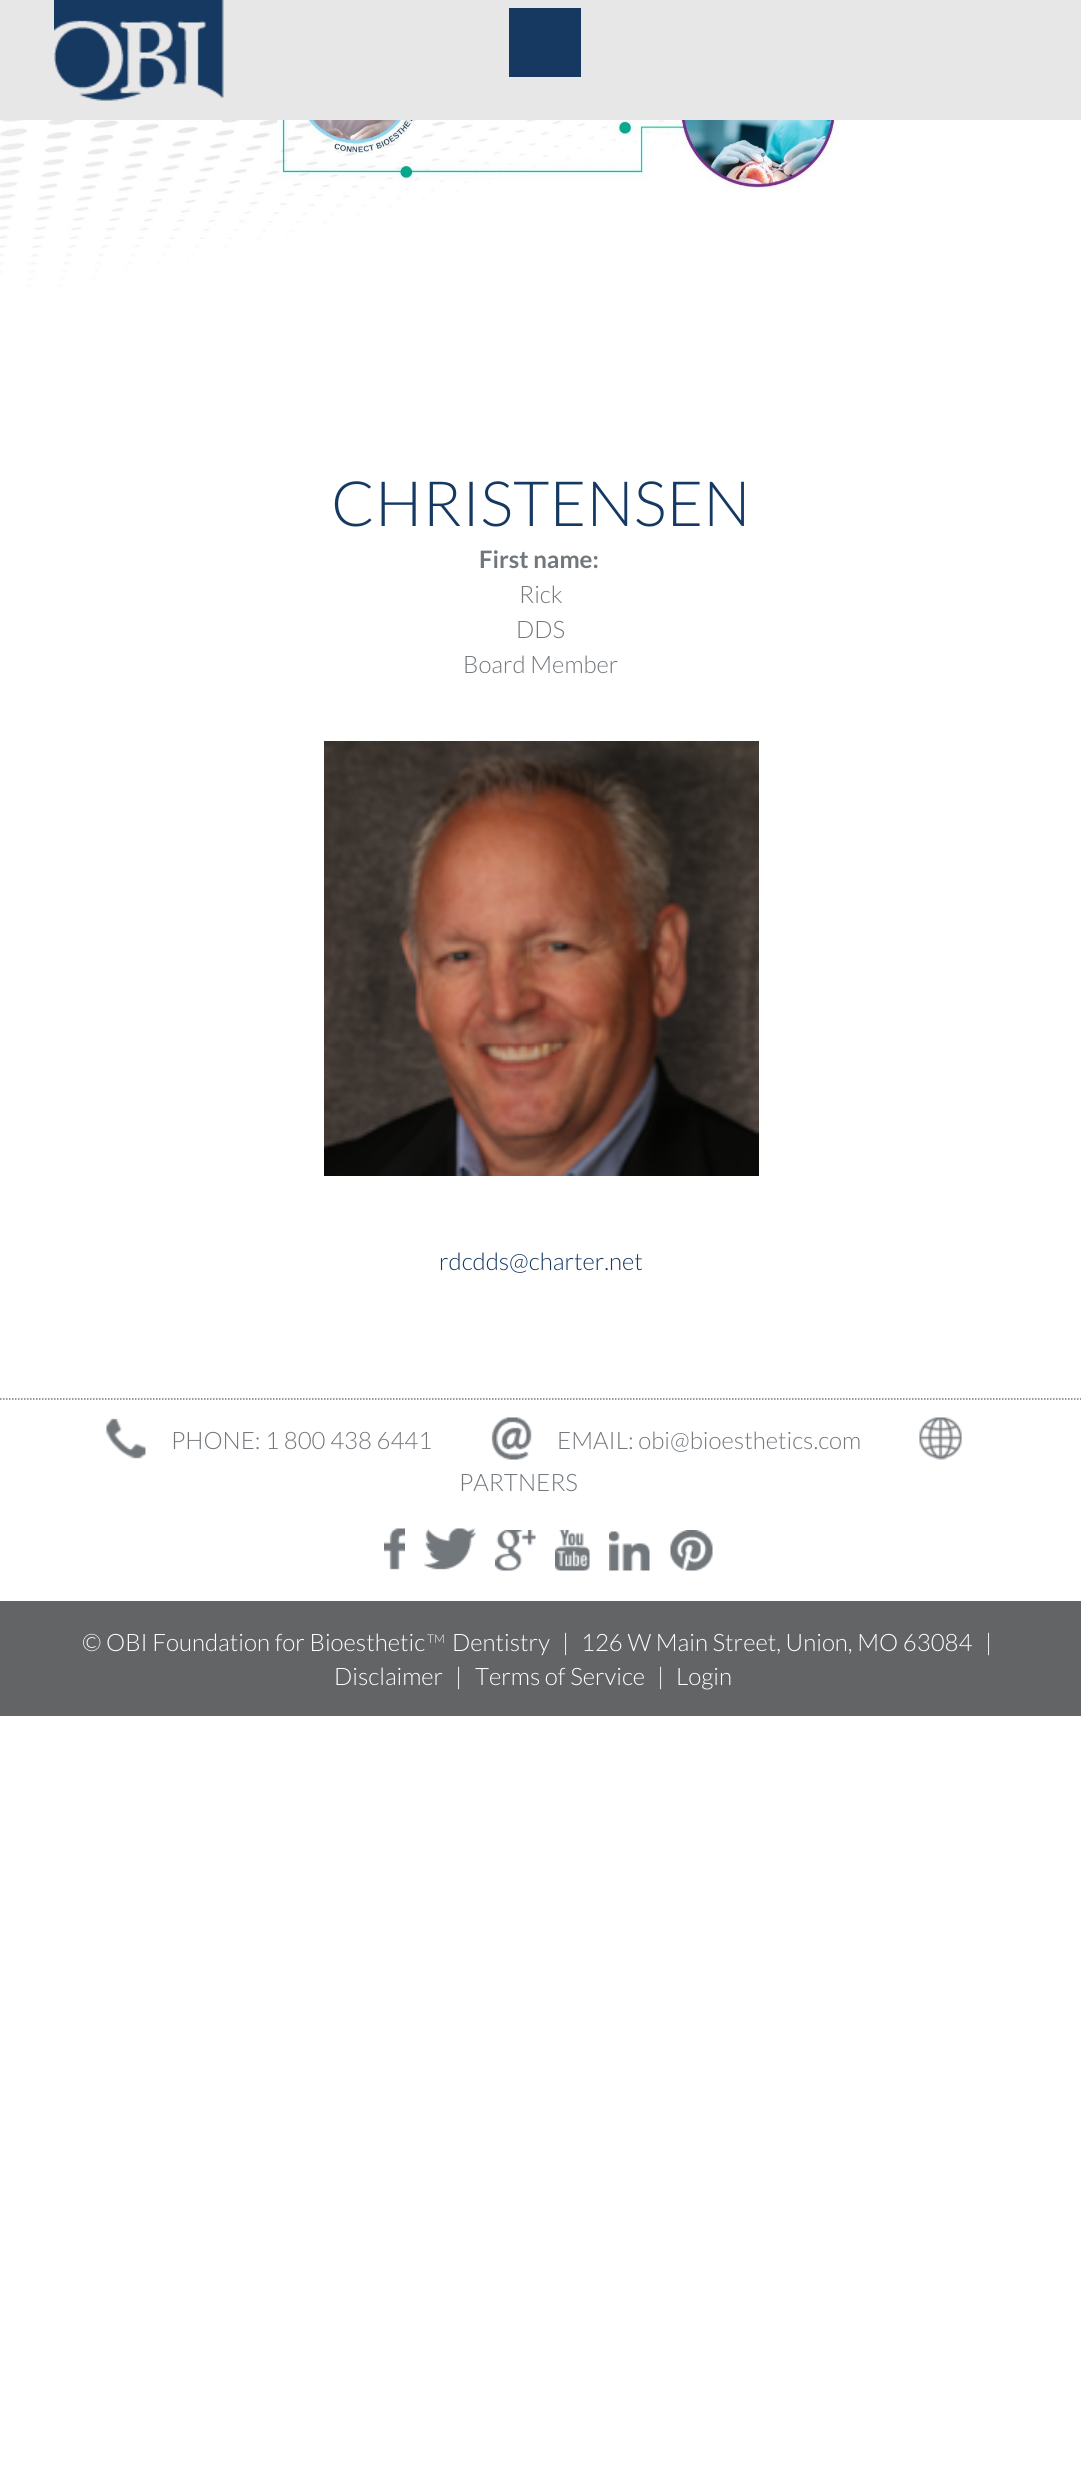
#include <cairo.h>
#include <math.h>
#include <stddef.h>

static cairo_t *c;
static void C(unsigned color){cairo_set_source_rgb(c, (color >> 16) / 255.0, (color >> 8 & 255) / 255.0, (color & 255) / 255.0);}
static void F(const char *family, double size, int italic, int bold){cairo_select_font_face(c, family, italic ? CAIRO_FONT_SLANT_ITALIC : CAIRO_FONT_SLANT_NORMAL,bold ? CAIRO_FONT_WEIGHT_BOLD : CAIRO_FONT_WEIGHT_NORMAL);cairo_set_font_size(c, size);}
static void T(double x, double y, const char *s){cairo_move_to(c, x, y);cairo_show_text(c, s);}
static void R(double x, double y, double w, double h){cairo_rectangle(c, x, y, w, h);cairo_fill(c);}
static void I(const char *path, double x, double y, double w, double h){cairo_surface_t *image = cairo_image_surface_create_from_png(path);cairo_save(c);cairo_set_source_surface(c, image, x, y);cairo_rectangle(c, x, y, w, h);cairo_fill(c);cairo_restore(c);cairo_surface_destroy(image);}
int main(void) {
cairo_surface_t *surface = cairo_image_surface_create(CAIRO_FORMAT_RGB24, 1081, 2474);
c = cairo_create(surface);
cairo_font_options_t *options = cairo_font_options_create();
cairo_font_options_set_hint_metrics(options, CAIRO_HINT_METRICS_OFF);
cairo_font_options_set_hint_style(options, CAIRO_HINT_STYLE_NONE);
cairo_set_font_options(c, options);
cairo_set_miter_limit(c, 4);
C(0xffffff);
cairo_paint(c);
C(0xe7e7e8);
R(0,0,1081,120);
I("1.png",54,0,170,101);
C(0x163962);
R(509,8,72,69);
I("2.png",0,120,1081,167);
F("Lato Light",62.5,0,0);
T(331,526,"CHRISTENSEN");
F("Lato",24,0,1);
C(0x72777c);
T(479,568,"First name:");
F("Lato Light",24,0,0);
T(519,603,"Rick");
T(516,638,"DDS");
T(463,673,"Board Member");
I("3.png",324,741,435,435);
C(0x163962);
T(439,1270,"rdcdds@charter.net");
cairo_new_path(c);
cairo_move_to(c,0,1399);
cairo_line_to(c,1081.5,1399);
C(0x72777c);
cairo_set_line_width(c,1.5);
cairo_set_dash(c,(double[]){1.5,1.5},2,0);
cairo_stroke(c);
I("4.png",106,1418,40,41);
T(171,1449,"PHONE: 1 800 438 6441");
I("5.png",491,1417,41,43);
T(557,1449,"EMAIL: obi@bioesthetics.com");
I("6.png",919,1417,43,43);
T(459,1491,"PARTNERS");
I("7.png",384,1528,21,42);
I("8.png",424,1528,52,42);
I("9.png",495,1530,41,41);
I("10.png",555,1530,35,41);
I("11.png",609,1531,41,40);
I("12.png",670,1530,43,41);
C(0x636466);
R(0,1601,1081,115);
C(0xffffff);
T(82,1651,"© OBI Foundation for Bioesthetic");
F("Lato Light",12,0,0);
T(427,1643,"TM");
F("Lato Light",24,0,0);
T(452,1651,"Dentistry");
T(562,1651,"|");
T(581,1651,"126 W Main Street, Union, MO 63084");
T(985,1651,"|");
T(334,1685,"Disclaimer");
T(455,1685,"|");
T(475,1685,"Terms of Service");
T(657,1685,"|");
T(676,1685,"Login");
cairo_surface_write_to_png(surface, "o.png");
cairo_font_options_destroy(options);
cairo_destroy(c);
cairo_surface_destroy(surface);
return 0;
}
